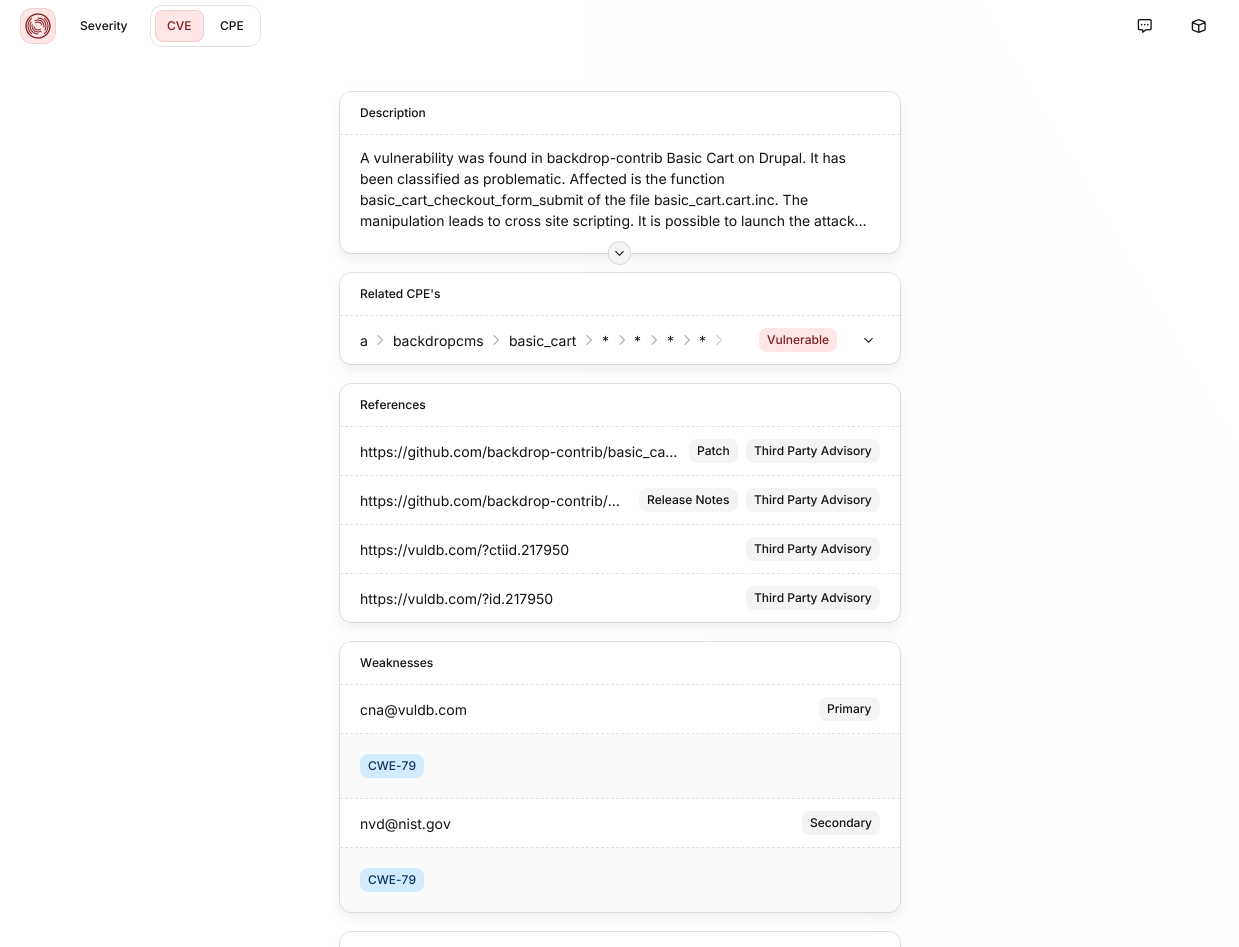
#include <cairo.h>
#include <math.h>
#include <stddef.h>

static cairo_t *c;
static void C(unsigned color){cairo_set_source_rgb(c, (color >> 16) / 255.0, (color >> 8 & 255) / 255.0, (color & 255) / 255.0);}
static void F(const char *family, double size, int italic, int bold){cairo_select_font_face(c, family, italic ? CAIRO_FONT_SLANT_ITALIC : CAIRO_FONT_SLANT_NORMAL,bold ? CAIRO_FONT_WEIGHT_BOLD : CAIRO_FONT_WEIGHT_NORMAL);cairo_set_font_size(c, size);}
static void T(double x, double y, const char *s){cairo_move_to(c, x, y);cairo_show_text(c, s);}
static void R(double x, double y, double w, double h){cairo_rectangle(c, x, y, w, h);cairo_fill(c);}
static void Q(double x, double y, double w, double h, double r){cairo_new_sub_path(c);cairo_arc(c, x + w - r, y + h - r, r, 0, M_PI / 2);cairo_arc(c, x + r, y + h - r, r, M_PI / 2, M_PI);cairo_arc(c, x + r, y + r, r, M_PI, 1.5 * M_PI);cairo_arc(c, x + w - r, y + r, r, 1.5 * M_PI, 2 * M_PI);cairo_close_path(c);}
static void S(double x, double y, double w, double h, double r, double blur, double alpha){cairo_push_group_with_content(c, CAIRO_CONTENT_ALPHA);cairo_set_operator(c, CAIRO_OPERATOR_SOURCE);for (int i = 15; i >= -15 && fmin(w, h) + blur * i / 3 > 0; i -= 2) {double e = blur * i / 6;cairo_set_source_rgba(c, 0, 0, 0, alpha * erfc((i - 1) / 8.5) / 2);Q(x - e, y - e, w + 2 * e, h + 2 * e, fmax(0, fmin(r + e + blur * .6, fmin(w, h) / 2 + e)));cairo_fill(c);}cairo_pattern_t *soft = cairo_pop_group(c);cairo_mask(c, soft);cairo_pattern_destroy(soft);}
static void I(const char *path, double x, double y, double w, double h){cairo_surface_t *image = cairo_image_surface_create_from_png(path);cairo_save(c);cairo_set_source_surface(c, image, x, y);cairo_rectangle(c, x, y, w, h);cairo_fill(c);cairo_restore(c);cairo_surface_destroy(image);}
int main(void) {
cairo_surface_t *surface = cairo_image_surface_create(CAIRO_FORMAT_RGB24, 1239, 947);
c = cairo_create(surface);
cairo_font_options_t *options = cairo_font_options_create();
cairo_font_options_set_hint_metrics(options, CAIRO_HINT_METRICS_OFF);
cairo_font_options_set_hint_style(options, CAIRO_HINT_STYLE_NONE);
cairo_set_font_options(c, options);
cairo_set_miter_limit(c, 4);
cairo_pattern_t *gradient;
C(0xffffff);
cairo_paint(c);
gradient = cairo_pattern_create_linear(-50,860,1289,87);
cairo_pattern_add_color_stop_rgba(gradient,0,1,1,1,1);
cairo_pattern_add_color_stop_rgba(gradient,.3,1,1,1,1);
cairo_pattern_add_color_stop_rgba(gradient,.7,1,0.996,0.988,1);
cairo_pattern_add_color_stop_rgba(gradient,1,1,1,1,1);
cairo_set_source(c,gradient);
cairo_pattern_destroy(gradient);
R(585,0,654,947);
C(0xffe6e6);
Q(20,8,36,36,12);
cairo_fill(c);
Q(20.5,8.5,35,35,11.5);
cairo_set_source_rgba(c,0.498,0.102,0.102,0.12);
cairo_set_line_width(c,1);
cairo_stroke(c);
I("1.png",25,13,26,26);
F("Inter Medium",12,0,0);
C(0x111113);
T(80,30,"Severity");
Q(150.5,5.5,110,41,12.5);
C(0xe1e1e1);
cairo_stroke(c);
C(0xffffff);
Q(151,6,109,40,12);
cairo_fill(c);
C(0xffe6e6);
Q(155,10,49,32,8);
cairo_fill(c);
Q(155.5,10.5,48,31,7.5);
cairo_set_source_rgba(c,0.498,0.102,0.102,0.12);
cairo_stroke(c);
C(0x7f1a1a);
T(167,30,"CVE");
C(0x111113);
T(220,30,"CPE");
I("2.png",1137,19,15,14);
I("3.png",1191,19,15,14);
C(0x797986);
S(340,98,560,161,12,6,.12);
Q(339.5,91.5,561,162,12.5);
cairo_set_source_rgba(c,0.067,0.067,0.075,0.12);
cairo_stroke(c);
C(0xffffff);
Q(340,92,560,161,12);
cairo_fill(c);
C(0x111113);
T(360,117,"Description");
cairo_new_path(c);
cairo_move_to(c,340,134.5);
cairo_line_to(c,900,134.5);
C(0xe1e1e2);
cairo_set_dash(c,(double[]){3,2.02},2,0);
cairo_stroke(c);
F("Inter",14,0,0);
C(0x111113);
T(360,163,"A vulnerability was found in backdrop-contrib Basic Cart on Drupal. It has");
T(360,184,"been classified as problematic. Affected is the function");
T(360,205,"basic_cart_checkout_form_submit of the file basic_cart.cart.inc. The");
T(360,226,"manipulation leads to cross site scripting. It is possible to launch the attack…");
C(0x797986);
S(340,279,560,91,12,6,.12);
C(0xf4f4f5);
Q(608,241,23,24,11.5);
cairo_fill(c);
Q(608.5,241.5,22,23,11);
cairo_set_source_rgba(c,0.067,0.067,0.075,0.12);
cairo_set_dash(c,NULL,0,0);
cairo_stroke(c);
I("4.png",615,251,9,5);
Q(339.5,272.5,561,92,12.5);
cairo_stroke(c);
C(0xffffff);
Q(340,273,560,91,12);
cairo_fill(c);
F("Inter Medium",12,0,0);
C(0x111113);
T(360,298,"Related CPE's");
cairo_new_path(c);
cairo_move_to(c,340,315.5);
cairo_line_to(c,900,315.5);
C(0xe1e1e2);
cairo_set_dash(c,(double[]){3,2.02},2,0);
cairo_stroke(c);
F("Inter",14,0,0);
C(0x111113);
T(360,346,"a");
I("5.png",377,335,6,10);
T(393,346,"backdropcms");
I("5.png",493,335,6,10);
T(509,346,"basic_cart");
I("5.png",586,335,6,10);
T(602,346,"*");
I("5.png",619,335,6,10);
T(634,346,"*");
I("5.png",651,335,6,10);
T(667,346,"*");
I("5.png",684,335,6,10);
T(699,346,"*");
I("5.png",716,335,6,10);
gradient = cairo_pattern_create_linear(711,341,739,341);
cairo_pattern_add_color_stop_rgba(gradient,0,1,1,1,0);
cairo_pattern_add_color_stop_rgba(gradient,.8,1,1,1,1);
cairo_set_source(c,gradient);
cairo_pattern_destroy(gradient);
R(716,335,6,10);
C(0xffe6e6);
Q(759,328,78,24,8);
cairo_fill(c);
F("Inter Medium",12,0,0);
C(0x7f1a1a);
T(767,344,"Vulnerable");
I("6.png",864,338,9,5);
C(0x797986);
S(340,390,560,238,12,6,.12);
Q(339.5,383.5,561,239,12.5);
cairo_set_source_rgba(c,0.067,0.067,0.075,0.12);
cairo_set_dash(c,NULL,0,0);
cairo_stroke(c);
C(0xffffff);
Q(340,384,560,238,12);
cairo_fill(c);
C(0x111113);
T(360,409,"References");
cairo_new_path(c);
cairo_move_to(c,340,426.5);
cairo_line_to(c,900,426.5);
C(0xe1e1e2);
cairo_set_dash(c,(double[]){3,2.02},2,0);
cairo_stroke(c);
F("Inter",14,0,0);
C(0x111113);
T(360,457,"https://github.com/backdrop-contrib/basic_ca…");
C(0xf4f4f5);
Q(689,439,49,24,8);
cairo_fill(c);
F("Inter Medium",12,0,0);
C(0x111113);
T(697,455,"Patch");
C(0xf4f4f5);
Q(746,439,134,24,8);
cairo_fill(c);
C(0x111113);
T(754,455,"Third Party Advisory");
cairo_new_path(c);
cairo_move_to(c,340,475.5);
cairo_line_to(c,900,475.5);
C(0xe1e1e2);
cairo_stroke(c);
F("Inter",14,0,0);
C(0x111113);
T(360,506,"https://github.com/backdrop-contrib/…");
C(0xf4f4f5);
Q(639,488,99,24,8);
cairo_fill(c);
F("Inter Medium",12,0,0);
C(0x111113);
T(647,504,"Release Notes");
C(0xf4f4f5);
Q(746,488,134,24,8);
cairo_fill(c);
C(0x111113);
T(754,504,"Third Party Advisory");
cairo_new_path(c);
cairo_move_to(c,340,524.5);
cairo_line_to(c,900,524.5);
C(0xe1e1e2);
cairo_stroke(c);
F("Inter",14,0,0);
C(0x111113);
T(360,555,"https://vuldb.com/?ctiid.217950");
C(0xf4f4f5);
Q(746,537,134,24,8);
cairo_fill(c);
F("Inter Medium",12,0,0);
C(0x111113);
T(754,553,"Third Party Advisory");
cairo_new_path(c);
cairo_move_to(c,340,573.5);
cairo_line_to(c,900,573.5);
C(0xe1e1e2);
cairo_stroke(c);
F("Inter",14,0,0);
C(0x111113);
T(360,604,"https://vuldb.com/?id.217950");
C(0xf4f4f5);
Q(746,586,134,24,8);
cairo_fill(c);
F("Inter Medium",12,0,0);
C(0x111113);
T(754,602,"Third Party Advisory");
C(0x797986);
S(340,648,560,270,12,6,.12);
Q(339.5,641.5,561,271,12.5);
cairo_set_source_rgba(c,0.067,0.067,0.075,0.12);
cairo_set_dash(c,NULL,0,0);
cairo_stroke(c);
C(0xffffff);
Q(340,642,560,270,12);
cairo_fill(c);
C(0x111113);
T(360,667,"Weaknesses");
cairo_new_path(c);
cairo_move_to(c,340,684.5);
cairo_line_to(c,900,684.5);
C(0xe1e1e2);
cairo_set_dash(c,(double[]){3,2.02},2,0);
cairo_stroke(c);
F("Inter",14,0,0);
C(0x111113);
T(360,715,"cna@vuldb.com");
C(0xf4f4f5);
Q(819,697,61,24,8);
cairo_fill(c);
F("Inter Medium",12,0,0);
C(0x111113);
T(827,713,"Primary");
cairo_new_path(c);
cairo_move_to(c,340,733.5);
cairo_line_to(c,900,733.5);
C(0xe1e1e2);
cairo_stroke(c);
C(0xfafafa);
R(340,734,560,64);
C(0xd1ebff);
Q(360,754,64,24,8);
cairo_fill(c);
C(0x0d375e);
T(368,770,"CWE-79");
cairo_new_path(c);
cairo_move_to(c,340,798.5);
cairo_line_to(c,900,798.5);
C(0xe1e1e2);
cairo_stroke(c);
F("Inter",14,0,0);
C(0x111113);
T(360,829,"nvd@nist.gov");
C(0xf4f4f5);
Q(802,811,78,24,8);
cairo_fill(c);
F("Inter Medium",12,0,0);
C(0x111113);
T(810,827,"Secondary");
cairo_new_path(c);
cairo_move_to(c,340,847.5);
cairo_line_to(c,900,847.5);
C(0xe1e1e2);
cairo_stroke(c);
C(0xfafafa);
cairo_new_path(c);
cairo_move_to(c,340,848);
cairo_line_to(c,900,848);
cairo_line_to(c,900,900);
cairo_curve_to(c,900,906.5,894.5,912,888,912);
cairo_line_to(c,352,912);
cairo_curve_to(c,345.5,912,340,906.5,340,900);
cairo_close_path(c);
cairo_fill(c);
C(0xd1ebff);
Q(360,868,64,24,8);
cairo_fill(c);
C(0x0d375e);
T(368,884,"CWE-79");
C(0x797986);
S(340,938,560,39,12,6,.12);
Q(339.5,931.5,561,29,12.5);
cairo_set_source_rgba(c,0.067,0.067,0.075,0.12);
cairo_set_dash(c,NULL,0,0);
cairo_stroke(c);
C(0xffffff);
cairo_new_path(c);
cairo_move_to(c,352,932);
cairo_line_to(c,888,932);
cairo_curve_to(c,894.5,932,900,937.5,900,944);
cairo_line_to(c,900,947);
cairo_line_to(c,340,947);
cairo_line_to(c,340,944);
cairo_curve_to(c,340,937.5,345.5,932,352,932);
cairo_close_path(c);
cairo_fill(c);
cairo_surface_write_to_png(surface, "o.png");
cairo_font_options_destroy(options);
cairo_destroy(c);
cairo_surface_destroy(surface);
return 0;
}
